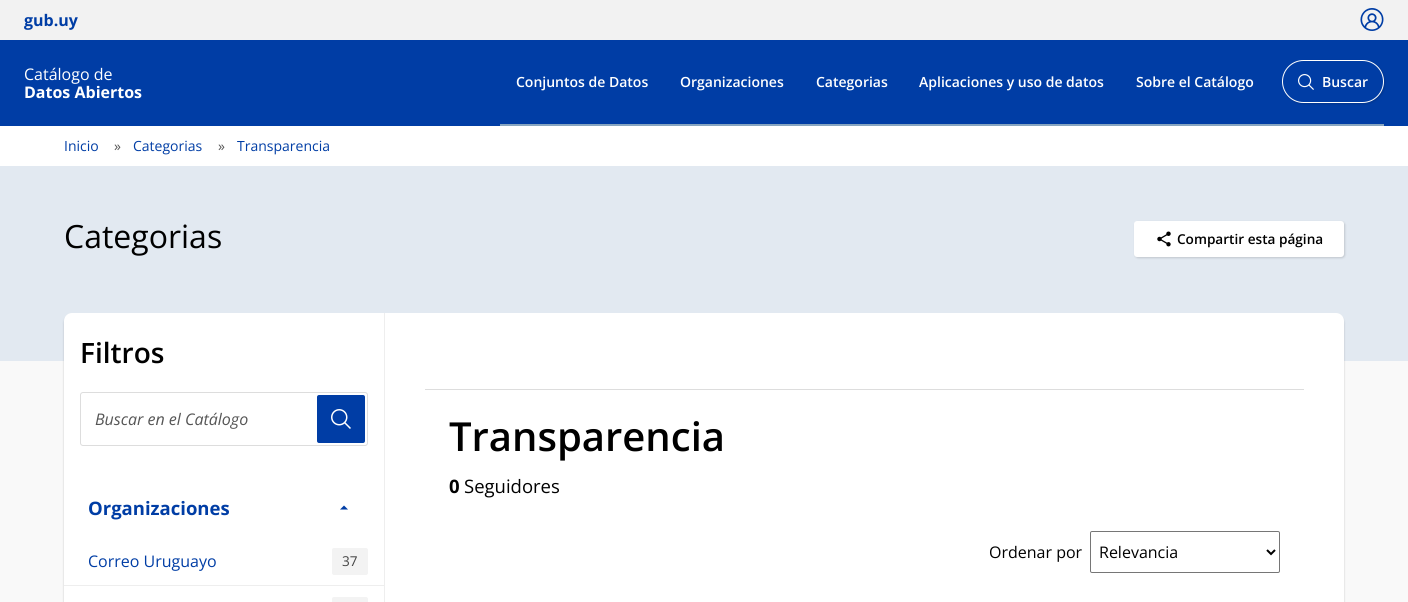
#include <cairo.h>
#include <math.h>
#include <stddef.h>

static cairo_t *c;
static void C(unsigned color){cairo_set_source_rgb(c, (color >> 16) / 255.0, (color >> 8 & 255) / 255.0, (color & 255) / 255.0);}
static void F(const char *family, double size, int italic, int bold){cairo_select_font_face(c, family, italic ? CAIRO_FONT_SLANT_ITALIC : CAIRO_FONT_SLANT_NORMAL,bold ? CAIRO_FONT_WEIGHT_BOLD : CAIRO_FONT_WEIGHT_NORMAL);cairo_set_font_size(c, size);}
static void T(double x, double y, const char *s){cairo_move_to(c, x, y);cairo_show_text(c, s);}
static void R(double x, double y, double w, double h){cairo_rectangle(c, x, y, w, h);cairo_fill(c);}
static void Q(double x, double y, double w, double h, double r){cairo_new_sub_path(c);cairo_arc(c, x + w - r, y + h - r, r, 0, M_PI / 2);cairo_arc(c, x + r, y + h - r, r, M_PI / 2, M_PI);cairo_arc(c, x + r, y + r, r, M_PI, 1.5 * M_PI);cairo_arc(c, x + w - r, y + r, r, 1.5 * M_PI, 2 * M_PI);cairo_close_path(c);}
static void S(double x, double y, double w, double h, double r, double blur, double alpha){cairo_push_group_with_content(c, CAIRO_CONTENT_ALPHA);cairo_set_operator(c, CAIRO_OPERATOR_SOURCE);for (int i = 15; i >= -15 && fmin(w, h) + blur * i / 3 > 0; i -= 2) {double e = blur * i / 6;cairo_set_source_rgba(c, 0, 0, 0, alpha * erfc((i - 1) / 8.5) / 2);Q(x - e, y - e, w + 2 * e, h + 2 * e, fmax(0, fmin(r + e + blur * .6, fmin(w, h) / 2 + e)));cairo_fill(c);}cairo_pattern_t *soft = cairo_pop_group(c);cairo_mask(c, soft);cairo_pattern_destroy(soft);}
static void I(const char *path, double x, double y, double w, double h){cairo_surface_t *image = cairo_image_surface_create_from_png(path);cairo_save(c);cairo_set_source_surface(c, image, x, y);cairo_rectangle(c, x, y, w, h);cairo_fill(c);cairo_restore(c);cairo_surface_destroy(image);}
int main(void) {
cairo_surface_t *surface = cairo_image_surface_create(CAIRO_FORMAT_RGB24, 1408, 602);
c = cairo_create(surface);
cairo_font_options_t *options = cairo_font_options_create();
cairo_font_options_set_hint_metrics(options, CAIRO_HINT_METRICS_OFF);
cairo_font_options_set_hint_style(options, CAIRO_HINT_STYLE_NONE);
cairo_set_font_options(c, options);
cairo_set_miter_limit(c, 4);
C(0x003da5);
cairo_paint(c);
C(0xf2f2f2);
R(0,0,1408,40);
F("Open Sans",16,0,1);
C(0x003da5);
T(24,26,"gub.uy");
I("1.png",1360,8,24,23);
F("Open Sans",16,0,0);
C(0xffffff);
T(24,80,"Catálogo de");
F("Open Sans",16,0,1);
T(24,98,"Datos Abiertos");
C(0x87a5c0);
R(500,124,770,2);
F("Open Sans SemiBold",14,0,0);
C(0xffffff);
T(516,87,"Conjuntos de Datos");
T(680,87,"Organizaciones");
T(816,87,"Categorias");
T(919,87,"Aplicaciones y uso de datos");
T(1136,87,"Sobre el Catálogo");
C(0x87a5c0);
R(1270,124,114,2);
C(0x000000);
S(1283,61,102,43,21.5,1,.15);
C(0x003da5);
Q(1282.5,60.5,101,42,21);
cairo_fill_preserve(c);
C(0xffffff);
cairo_set_line_width(c,1);
cairo_stroke(c);
I("2.png",1298,74,16,16);
T(1322,87,"Buscar");
C(0xf9f9f9);
R(0,361,1408,241);
C(0xffffff);
R(0,126,1408,40);
F("Open Sans",14,0,0);
C(0x003da5);
T(64,151,"Inicio");
C(0x555555);
T(114,151,"»");
C(0x003da5);
T(133,151,"Categorias");
C(0x555555);
T(218,151,"»");
C(0x003da5);
T(237,151,"Transparencia");
C(0xe2e9f1);
R(0,166,1408,195);
F("Open Sans",32,0,0);
C(0x000000);
T(64,248,"Categorias");
C(0x000000);
S(1135,222,210,36,3,1,.15);
C(0xffffff);
Q(1134,221,210,36,3);
cairo_fill(c);
I("3.png",1157,231,14,16);
F("Open Sans SemiBold",13.6,0,0);
C(0x000000);
T(1177,244,"Compartir esta página");
C(0x000000);
S(64,315,1280,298,8,1,.18);
C(0xffffff);
Q(64,313,1280,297,8);
cairo_fill(c);
C(0xeeeeee);
R(384,313,1,289);
F("Open Sans SemiBold",28,0,0);
C(0x000000);
T(80,363,"Filtros");
Q(80.5,392.5,287,53,2.5);
C(0xdddddd);
cairo_stroke(c);
F("Open Sans",16,1,0);
C(0x555555);
T(95,425,"Buscar en el Catálogo");
C(0x003da5);
Q(317,395,48,48,2);
cairo_fill(c);
I("4.png",331,409,20,20);
F("Open Sans",18.5,0,1);
T(88,515,"Organizaciones");
cairo_new_path(c);
cairo_move_to(c,348,509.5);
cairo_line_to(c,340,509.5);
cairo_line_to(c,344,505.5);
cairo_close_path(c);
cairo_fill(c);
C(0xeeeeee);
R(64,585,320,1);
F("Open Sans",16,0,0);
C(0x003da5);
T(88,567,"Correo Uruguayo");
C(0xf3f3f3);
Q(332,548,36,27,2);
cairo_fill(c);
F("Open Sans",13.6,0,0);
C(0x444444);
T(342,566,"37");
C(0xf3f3f3);
Q(332,597,36,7,2);
cairo_fill(c);
C(0xdddddd);
R(425,389,879,1);
F("Open Sans SemiBold",40,0,0);
C(0x000000);
T(449,451,"Transparencia");
F("Open Sans",18.5,0,1);
T(449,493,"0");
F("Open Sans",18.5,0,0);
T(464,493,"Seguidores");
F("Open Sans",16,0,0);
T(989,558,"Ordenar por");
Q(1090.5,531.5,189,41,1.5);
C(0x767676);
cairo_stroke(c);
cairo_new_path(c);
cairo_move_to(c,1267,550);
cairo_line_to(c,1271,554);
cairo_line_to(c,1275,550);
C(0x000000);
cairo_set_line_width(c,2);
cairo_stroke(c);
T(1099,558,"Relevancia");
cairo_surface_write_to_png(surface, "o.png");
cairo_font_options_destroy(options);
cairo_destroy(c);
cairo_surface_destroy(surface);
return 0;
}
